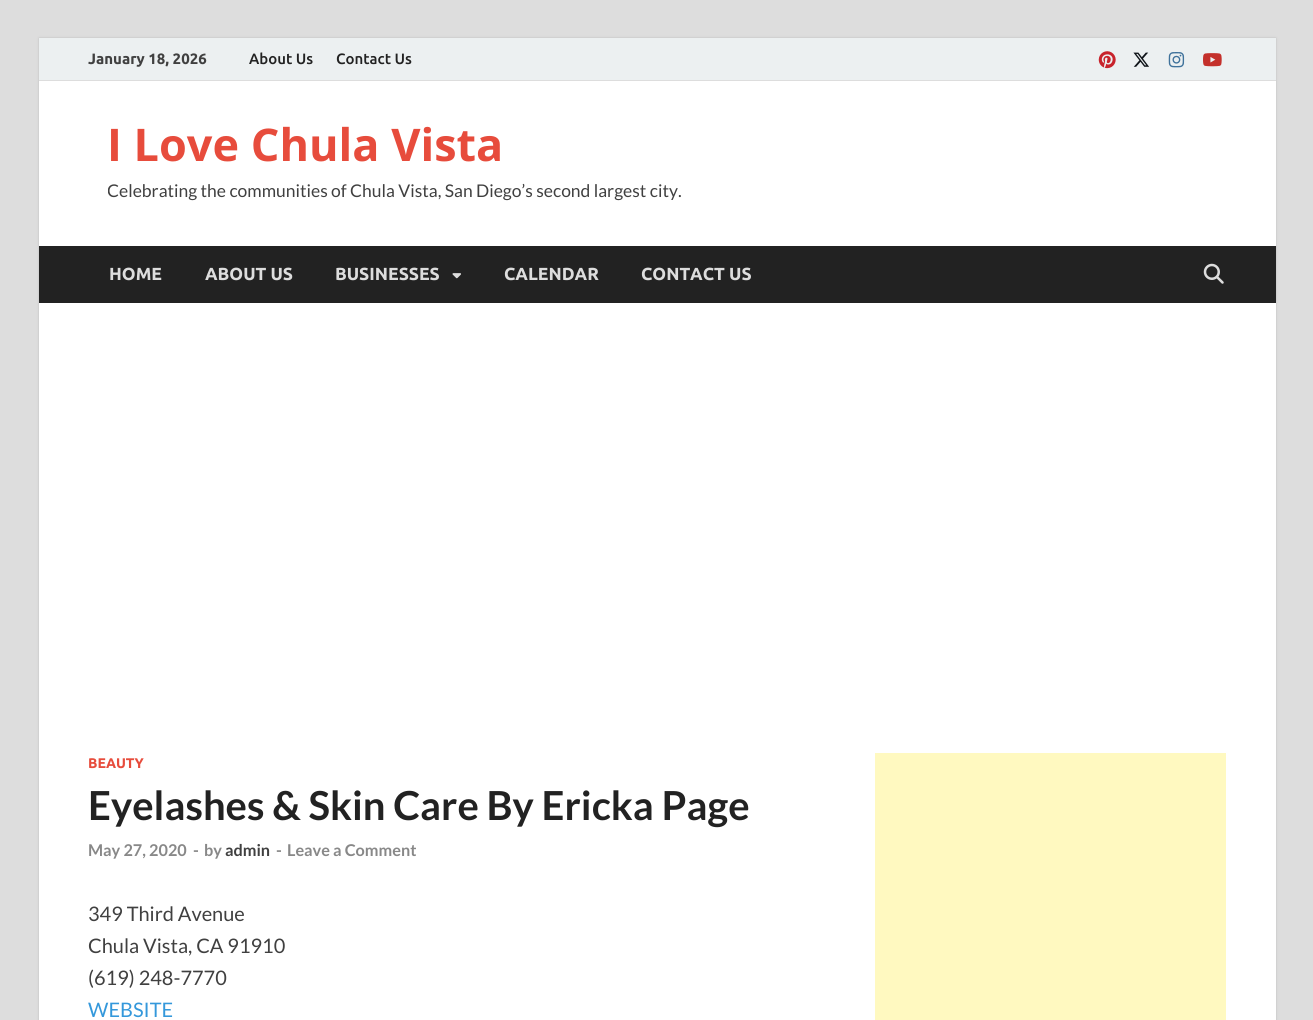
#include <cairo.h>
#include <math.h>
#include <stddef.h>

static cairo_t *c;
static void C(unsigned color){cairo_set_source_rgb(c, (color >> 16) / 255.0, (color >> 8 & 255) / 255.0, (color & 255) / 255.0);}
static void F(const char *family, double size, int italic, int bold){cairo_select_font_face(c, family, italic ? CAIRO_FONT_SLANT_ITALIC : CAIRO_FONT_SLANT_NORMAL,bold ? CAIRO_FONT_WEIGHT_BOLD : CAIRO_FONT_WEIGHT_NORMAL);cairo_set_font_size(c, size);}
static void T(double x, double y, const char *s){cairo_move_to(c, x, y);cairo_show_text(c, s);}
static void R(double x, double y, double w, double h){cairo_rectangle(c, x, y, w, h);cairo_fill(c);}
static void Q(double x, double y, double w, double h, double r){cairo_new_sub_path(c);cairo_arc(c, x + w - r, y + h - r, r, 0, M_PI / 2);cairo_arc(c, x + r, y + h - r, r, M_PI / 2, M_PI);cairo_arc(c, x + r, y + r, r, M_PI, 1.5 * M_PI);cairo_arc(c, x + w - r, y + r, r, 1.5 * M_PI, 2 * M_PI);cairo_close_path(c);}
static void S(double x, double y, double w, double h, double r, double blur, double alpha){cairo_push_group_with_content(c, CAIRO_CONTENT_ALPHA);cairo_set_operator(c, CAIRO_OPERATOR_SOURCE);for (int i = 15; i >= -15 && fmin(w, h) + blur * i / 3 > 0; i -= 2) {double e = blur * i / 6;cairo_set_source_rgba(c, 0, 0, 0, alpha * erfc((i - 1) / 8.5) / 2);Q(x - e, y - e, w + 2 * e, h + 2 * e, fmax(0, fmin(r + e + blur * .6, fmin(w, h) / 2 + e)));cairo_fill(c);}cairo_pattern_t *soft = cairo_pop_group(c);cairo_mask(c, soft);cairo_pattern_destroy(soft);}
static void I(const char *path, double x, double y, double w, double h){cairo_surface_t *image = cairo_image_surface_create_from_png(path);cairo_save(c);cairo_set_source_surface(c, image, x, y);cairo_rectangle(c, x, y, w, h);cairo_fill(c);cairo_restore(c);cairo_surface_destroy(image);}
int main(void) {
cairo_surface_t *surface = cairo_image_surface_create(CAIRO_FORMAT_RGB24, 1313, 1020);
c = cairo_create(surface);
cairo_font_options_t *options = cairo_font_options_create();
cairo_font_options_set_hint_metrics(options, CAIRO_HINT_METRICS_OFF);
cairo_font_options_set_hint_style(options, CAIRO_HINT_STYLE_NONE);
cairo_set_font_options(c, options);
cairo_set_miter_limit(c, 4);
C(0xdddddd);
cairo_paint(c);
C(0xbbbbbb);
S(39,38,1237,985,0,1,1);
C(0xffffff);
R(39,81,1237,939);
C(0xecf0f1);
R(39,38,1237,42);
C(0xdddddd);
R(39,80,1237,1);
F("Ubuntu",15,0,1);
C(0x404040);
T(88,64,"January 18, 2026");
F("Ubuntu Medium",15,0,0);
C(0x222222);
T(249,64,"About Us");
T(336,64,"Contact Us");
I("1.png",1098,51,18,18);
I("2.png",1133,52,16,15);
I("3.png",1168,52,17,16);
I("4.png",1203,53,19,14);
F("Open Sans",45,0,1);
C(0xe74c3c);
T(107,161,"I Love Chula Vista");
cairo_save(c);
cairo_rectangle(c,108,116,573,88);
cairo_clip(c);
F("Lato",17.5,0,0);
C(0x404040);
T(107,197,"Celebrating the communities of Chula Vista, San Diego’s second largest city.");
cairo_restore(c);
C(0x222222);
R(39,246,1237,57);
F("Ubuntu",17.5,0,1);
C(0xdddddd);
T(109,280,"HOME");
T(205,280,"ABOUT US");
T(335,280,"BUSINESSES");
I("5.png",452,273,9,6);
T(504,280,"CALENDAR");
T(641,280,"CONTACT US");
I("6.png",1203,263,21,21);
F("Ubuntu",14,0,1);
C(0xe74c3c);
T(88,768,"BEAUTY");
F("Lato",40,0,1);
C(0x222222);
T(88,820,"Eyelashes & Skin Care By Ericka Page");
F("Lato",16.25,0,1);
C(0x888888);
T(88,856,"May 27, 2020");
T(193,856,"-");
T(204,856,"by");
C(0x404040);
T(225,856,"admin");
C(0x888888);
T(276,856,"-");
T(287,856,"Leave a Comment");
F("Lato",20,0,0);
C(0x404040);
T(88,921,"349 Third Avenue");
T(88,953,"Chula Vista, CA 91910");
T(88,985,"(619) 248-7770");
C(0x3498db);
T(88,1017,"WEBSITE");
C(0xfff9c0);
R(875,753,351,267);
cairo_surface_write_to_png(surface, "o.png");
cairo_font_options_destroy(options);
cairo_destroy(c);
cairo_surface_destroy(surface);
return 0;
}
